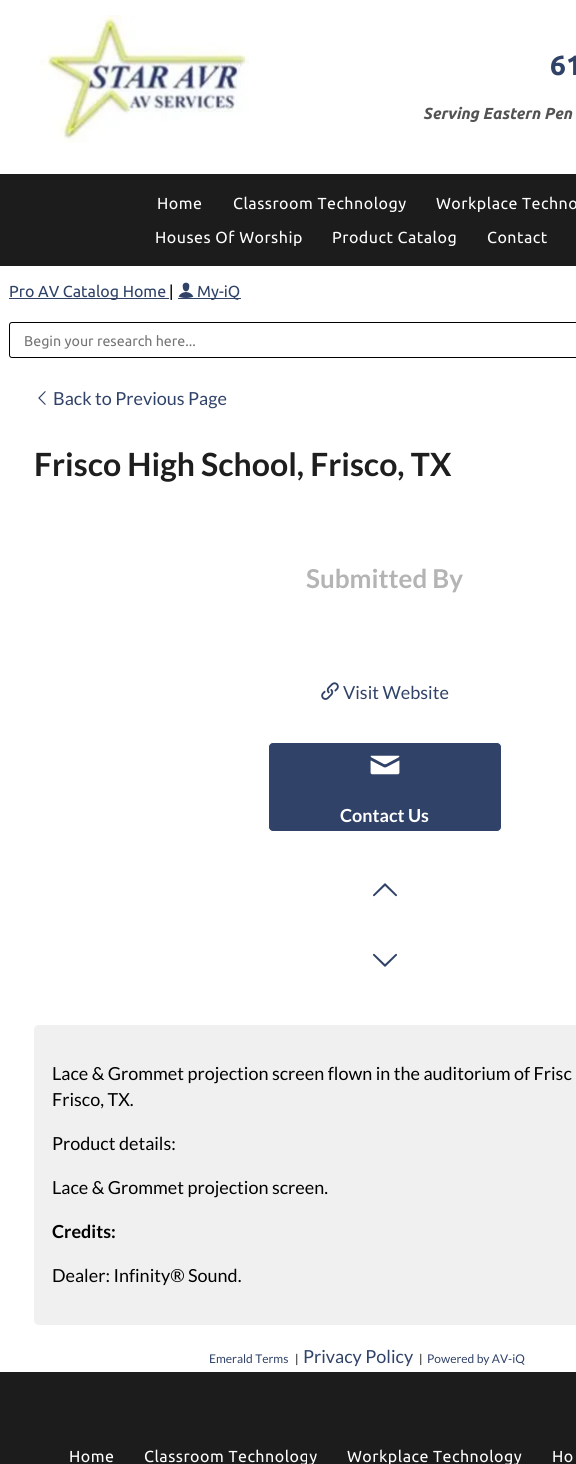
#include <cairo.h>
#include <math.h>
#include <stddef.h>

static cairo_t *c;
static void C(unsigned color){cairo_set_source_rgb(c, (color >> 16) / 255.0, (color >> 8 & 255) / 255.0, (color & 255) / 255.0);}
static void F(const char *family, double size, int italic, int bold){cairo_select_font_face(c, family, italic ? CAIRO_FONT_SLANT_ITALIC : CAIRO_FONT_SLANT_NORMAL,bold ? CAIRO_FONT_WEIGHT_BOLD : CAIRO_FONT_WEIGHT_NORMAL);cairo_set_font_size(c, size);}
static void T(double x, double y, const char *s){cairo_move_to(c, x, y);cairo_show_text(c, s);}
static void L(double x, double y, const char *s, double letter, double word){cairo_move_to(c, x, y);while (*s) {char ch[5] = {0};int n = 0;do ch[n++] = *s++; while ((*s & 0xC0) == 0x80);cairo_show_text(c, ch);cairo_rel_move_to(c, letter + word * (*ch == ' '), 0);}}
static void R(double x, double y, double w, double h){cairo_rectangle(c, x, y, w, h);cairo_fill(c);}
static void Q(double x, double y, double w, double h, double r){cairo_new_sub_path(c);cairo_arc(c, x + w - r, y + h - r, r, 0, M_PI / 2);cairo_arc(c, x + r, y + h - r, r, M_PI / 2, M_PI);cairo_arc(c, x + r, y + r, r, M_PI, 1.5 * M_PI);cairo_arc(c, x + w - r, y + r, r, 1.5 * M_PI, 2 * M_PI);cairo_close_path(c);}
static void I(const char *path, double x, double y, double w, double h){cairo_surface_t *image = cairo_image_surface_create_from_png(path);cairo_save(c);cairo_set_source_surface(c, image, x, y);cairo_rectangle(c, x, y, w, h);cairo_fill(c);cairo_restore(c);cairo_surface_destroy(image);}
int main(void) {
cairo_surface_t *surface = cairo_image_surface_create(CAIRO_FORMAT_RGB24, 576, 1464);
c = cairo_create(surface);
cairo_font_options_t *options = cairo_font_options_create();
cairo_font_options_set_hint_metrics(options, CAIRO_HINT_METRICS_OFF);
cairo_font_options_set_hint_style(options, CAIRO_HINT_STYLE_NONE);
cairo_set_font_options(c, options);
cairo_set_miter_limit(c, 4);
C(0xffffff);
cairo_paint(c);
I("1.png",40,15,209,128);
F("Ubuntu",28,0,1);
C(0x304268);
T(550,75,"61");
F("Ubuntu",16,1,1);
C(0x535353);
T(423,119,"Serving Eastern Pen");
C(0x1c1c1c);
R(0,174,576,92);
F("Ubuntu",16,0,0);
C(0xffffff);
L(157,209,"Home",.5,0);
L(233,209,"Classroom Technology",.5,0);
L(436,209,"Workplace Techno",.5,0);
L(155,243,"Houses Of Worship",.5,0);
L(332,243,"Product Catalog",.5,0);
L(487,243,"Contact",.5,0);
C(0x304268);
R(9,298,160,1);
T(9,297,"Pro AV Catalog Home");
C(0x000000);
T(169,297,"|");
I("2.png",178,282,16,16);
C(0x304268);
R(178,298,63,1);
T(197,297,"My-iQ");
Q(9.5,322.5,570,35,2.5);
C(0x000000);
cairo_set_line_width(c,1);
cairo_stroke(c);
F("Ubuntu",14.25,0,0);
C(0x757575);
T(24,346,"Begin your research here...");
I("3.png",38,391,8,14);
F("Lato",18,0,0);
C(0x304268);
T(53,405,"Back to Previous Page");
F("Lato",32,0,1);
C(0x1e1e1e);
T(34,476,"Frisco High School, Frisco, TX");
F("Lato",26,0,1);
C(0xb4b4b4);
T(306,588,"Submitted By");
I("4.png",321,682,18,18);
F("Lato",18,0,0);
C(0x304268);
T(343,699,"Visit Website");
Q(268.5,742.5,233,89,4.5);
cairo_fill_preserve(c);
C(0xffffff);
cairo_stroke(c);
I("5.png",370,755,30,20);
F("Lato",18,0,1);
T(340,822,"Contact Us");
I("6.png",373,883,24,14);
I("7.png",373,953,24,14);
C(0xf0f0f0);
Q(34,1025,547,300,5);
cairo_fill(c);
F("Lato",18,0,0);
C(0x000000);
T(52,1080,"Lace & Grommet projection screen flown in the auditorium of Frisc");
T(52,1106,"Frisco, TX.");
T(52,1150,"Product details:");
T(52,1194,"Lace & Grommet projection screen.");
F("Lato",18,0,1);
T(52,1238,"Credits:");
F("Lato",18,0,0);
T(52,1282,"Dealer: Infinity® Sound.");
F("Lato",12,0,0);
C(0x304268);
T(209,1363,"Emerald Terms");
C(0x000000);
T(295,1363,"|");
F("Lato",18,0,0);
C(0x304268);
T(303,1363,"Privacy Policy");
F("Lato",12,0,0);
C(0x000000);
T(419,1363,"|");
C(0x304268);
T(427,1363,"Powered by AV-iQ");
C(0x1c1c1c);
R(0,1372,576,92);
F("Ubuntu",16,0,0);
C(0xffffff);
L(69,1462,"Home",.5,0);
L(144,1462,"Classroom Technology",.5,0);
L(347,1462,"Workplace Technology",.5,0);
L(552,1462,"Ho",.5,0);
cairo_surface_write_to_png(surface, "o.png");
cairo_font_options_destroy(options);
cairo_destroy(c);
cairo_surface_destroy(surface);
return 0;
}
